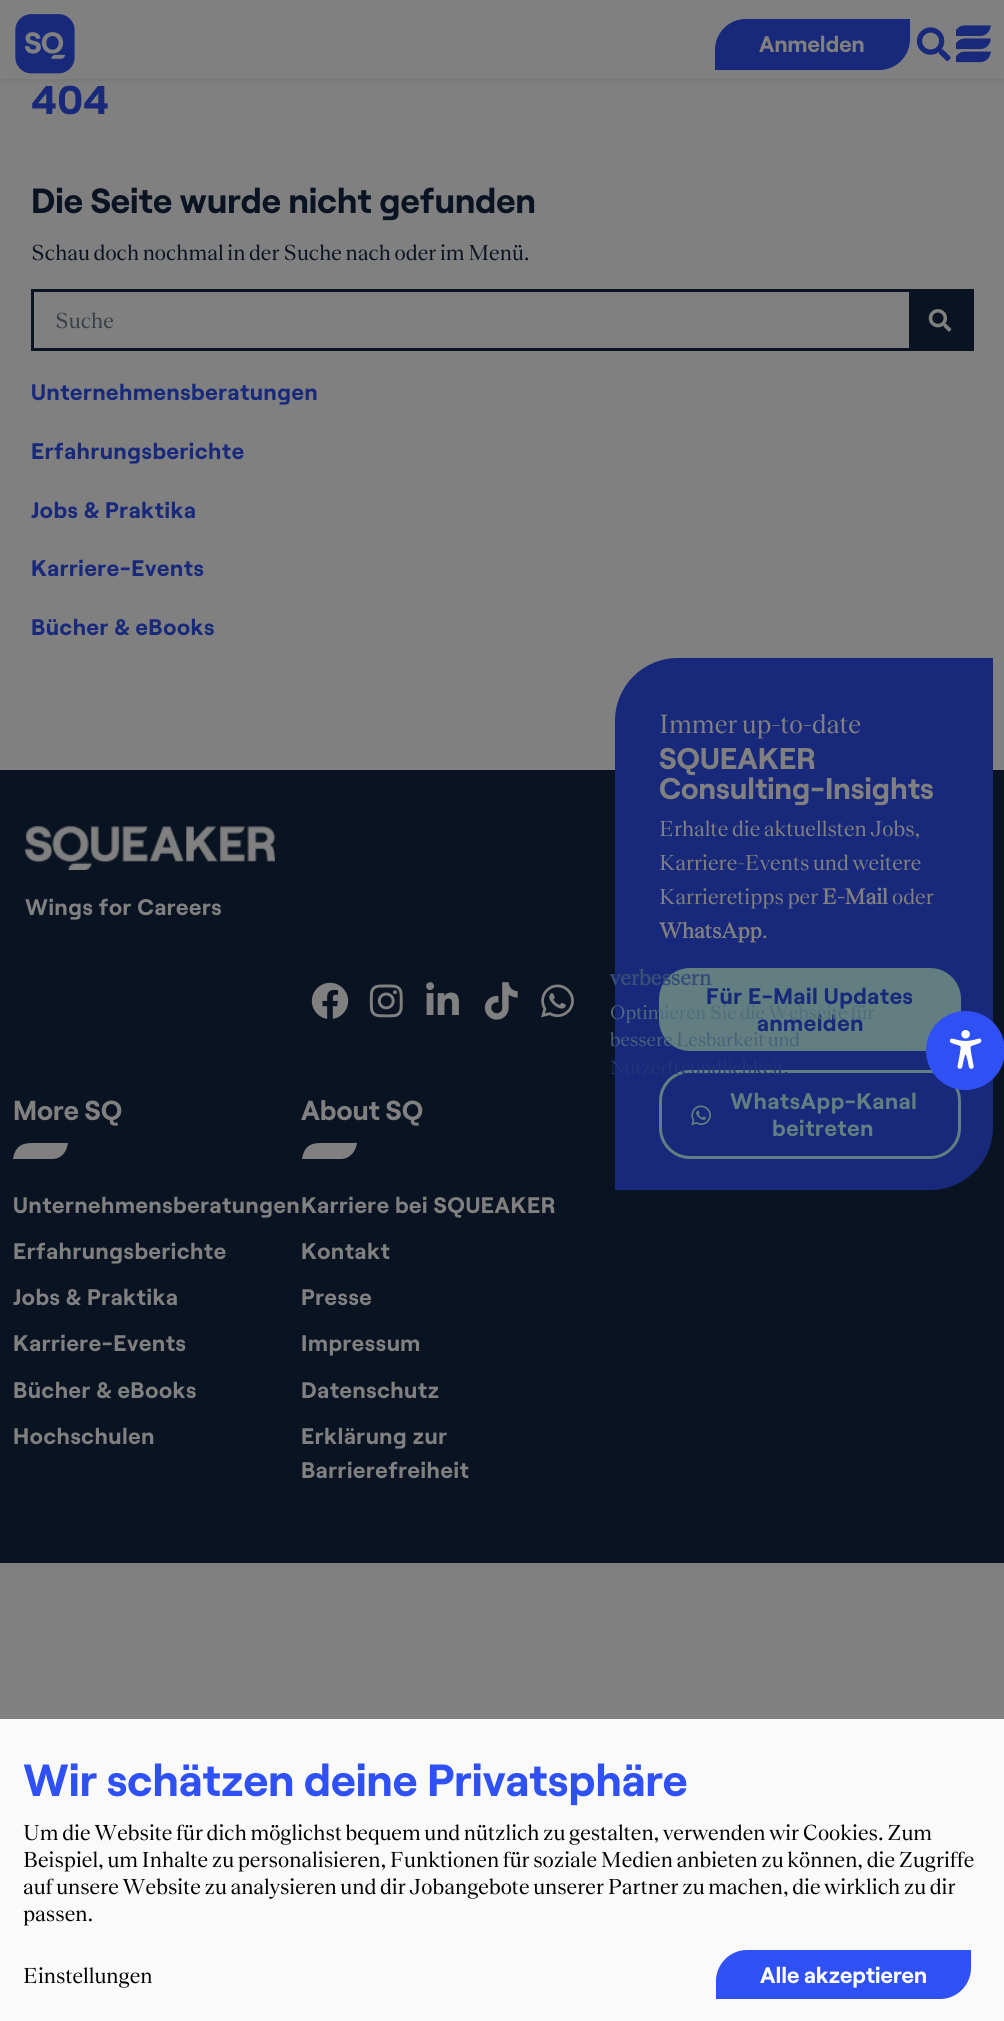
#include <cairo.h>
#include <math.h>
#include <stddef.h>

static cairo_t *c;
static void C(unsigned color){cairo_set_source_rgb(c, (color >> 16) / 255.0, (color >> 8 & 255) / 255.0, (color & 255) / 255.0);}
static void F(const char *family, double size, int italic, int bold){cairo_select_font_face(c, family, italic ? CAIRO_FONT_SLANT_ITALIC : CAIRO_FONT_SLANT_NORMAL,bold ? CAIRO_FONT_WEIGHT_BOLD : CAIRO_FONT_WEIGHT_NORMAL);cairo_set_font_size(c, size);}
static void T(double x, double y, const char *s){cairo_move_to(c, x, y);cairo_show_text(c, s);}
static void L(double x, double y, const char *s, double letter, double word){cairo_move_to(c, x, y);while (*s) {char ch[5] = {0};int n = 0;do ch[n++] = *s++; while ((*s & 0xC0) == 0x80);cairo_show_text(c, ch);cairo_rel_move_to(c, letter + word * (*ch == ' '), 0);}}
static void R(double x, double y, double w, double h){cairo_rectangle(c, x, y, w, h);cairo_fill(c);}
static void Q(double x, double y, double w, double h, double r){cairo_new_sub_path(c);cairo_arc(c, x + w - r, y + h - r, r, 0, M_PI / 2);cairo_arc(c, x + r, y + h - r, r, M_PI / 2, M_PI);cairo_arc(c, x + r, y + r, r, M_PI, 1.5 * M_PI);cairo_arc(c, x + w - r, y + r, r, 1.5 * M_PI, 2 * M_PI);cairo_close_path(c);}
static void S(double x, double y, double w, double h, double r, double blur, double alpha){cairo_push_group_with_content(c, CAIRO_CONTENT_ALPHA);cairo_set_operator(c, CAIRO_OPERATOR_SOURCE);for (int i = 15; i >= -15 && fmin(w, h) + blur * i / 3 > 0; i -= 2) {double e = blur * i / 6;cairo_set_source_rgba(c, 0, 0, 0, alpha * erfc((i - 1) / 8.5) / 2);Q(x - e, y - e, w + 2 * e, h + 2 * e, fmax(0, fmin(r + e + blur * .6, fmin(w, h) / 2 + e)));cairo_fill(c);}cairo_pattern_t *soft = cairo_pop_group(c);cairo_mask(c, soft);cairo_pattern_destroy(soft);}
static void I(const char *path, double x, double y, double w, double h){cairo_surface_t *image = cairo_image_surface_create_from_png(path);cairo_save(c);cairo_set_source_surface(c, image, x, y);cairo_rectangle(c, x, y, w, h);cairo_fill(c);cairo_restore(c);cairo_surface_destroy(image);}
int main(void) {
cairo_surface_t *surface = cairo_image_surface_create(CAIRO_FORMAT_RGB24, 1004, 2021);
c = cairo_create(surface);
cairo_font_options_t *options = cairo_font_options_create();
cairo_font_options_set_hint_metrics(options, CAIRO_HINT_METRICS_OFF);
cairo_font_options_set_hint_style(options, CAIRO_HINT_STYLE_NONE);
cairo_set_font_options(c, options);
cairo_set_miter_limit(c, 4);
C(0xffffff);
cairo_paint(c);
C(0x000000);
S(0,3,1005,78,0,2.5,.07);
C(0xffffff);
R(0,0,1004,79);
I("1.png",15,14,60,60);
C(0x2f50f5);
cairo_new_path(c);
cairo_move_to(c,746,19.5);
cairo_line_to(c,909.5,19.5);
cairo_line_to(c,909.5,39);
cairo_curve_to(c,909.5,56,896,69.5,879,69.5);
cairo_line_to(c,715.5,69.5);
cairo_line_to(c,715.5,50);
cairo_curve_to(c,715.5,33,729,19.5,746,19.5);
cairo_close_path(c);
cairo_fill_preserve(c);
cairo_set_line_width(c,1);
cairo_stroke(c);
F("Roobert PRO",22.5,0,1);
C(0xffffff);
T(759,52,"Anmelden");
I("2.png",916,27,35,35);
I("3.png",956,25,35,38);
F("Roobert PRO",40,0,1);
C(0x2f50f5);
T(31,114,"404");
F("Roobert PRO",35,0,1);
C(0x132644);
T(31,213,"Die Seite wurde nicht gefunden");
F("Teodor",22.5,0,0);
T(31,260,"Schau doch nochmal in der Suche nach oder im Menü.");
cairo_rectangle(c,32.5,290.5,940,59);
cairo_set_line_width(c,3);
cairo_stroke(c);
C(0x717d8f);
T(55,328,"Suche");
C(0x132644);
R(909,292,62,56);
I("4.png",928,309,24,23);
F("Roobert PRO",22.5,0,1);
C(0x2f50f5);
L(31,400,"Unternehmensberatungen",.6,0);
L(31,459,"Erfahrungsberichte",.6,0);
L(31,518,"Jobs & Praktika",.6,0);
L(31,576,"Karriere-Events",.6,0);
L(31,635,"Bücher & eBooks",.6,0);
C(0x132644);
R(0,770,1004,793);
I("5.png",25,826,250,44);
C(0xffffff);
L(25,915,"Wings for Careers",.6,0);
I("6.png",311,982,38,37);
I("7.png",369,984,34,34);
I("8.png",426,982,33,33);
I("9.png",484,982,34,38);
I("10.png",541,984,33,34);
F("Roobert PRO",27.5,0,1);
T(13,1120,"More SQ");
cairo_new_path(c);
cairo_move_to(c,52,1159);
cairo_line_to(c,13,1159);
cairo_curve_to(c,16,1141,28,1143,42,1143);
cairo_line_to(c,68,1143);
cairo_curve_to(c,67,1151,62,1159,52,1159);
cairo_fill(c);
F("Roobert PRO",22.5,0,1);
L(13,1213,"Unternehmensberatungen",.6,0);
L(13,1259,"Erfahrungsberichte",.6,0);
L(13,1305,"Jobs & Praktika",.6,0);
L(13,1351,"Karriere-Events",.6,0);
L(13,1398,"Bücher & eBooks",.6,0);
L(13,1444,"Hochschulen",.6,0);
F("Roobert PRO",27.5,0,1);
T(301,1120,"About SQ");
cairo_new_path(c);
cairo_move_to(c,341,1159);
cairo_line_to(c,302,1159);
cairo_curve_to(c,305,1141,316,1143,331,1143);
cairo_line_to(c,357,1143);
cairo_curve_to(c,356,1151,350,1159,341,1159);
cairo_fill(c);
F("Roobert PRO",22.5,0,1);
L(301,1213,"Karriere bei SQUEAKER",.6,0);
L(301,1259,"Kontakt",.6,0);
L(301,1305,"Presse",.6,0);
L(301,1351,"Impressum",.6,0);
L(301,1398,"Datenschutz",.6,0);
L(301,1444,"Erklärung zur",.6,0);
L(301,1478,"Barrierefreiheit",.6,0);
C(0x2f50f5);
cairo_new_path(c);
cairo_move_to(c,678,658);
cairo_line_to(c,993,658);
cairo_line_to(c,993,1127);
cairo_curve_to(c,993,1162,965,1190,930,1190);
cairo_line_to(c,615,1190);
cairo_line_to(c,615,721);
cairo_curve_to(c,615,686,643,658,678,658);
cairo_close_path(c);
cairo_fill(c);
F("Teodor",27.5,0,0);
C(0xffffff);
T(659,733,"Immer up-to-date");
F("Roobert PRO",30,0,1);
T(659,769,"SQUEAKER");
T(659,799,"Consulting-Insights");
F("Teodor",22.5,0,0);
T(659,836,"Erhalte die aktuellsten Jobs,");
T(659,870,"Karriere-Events und weitere");
T(659,904,"Karrieretipps per");
F("Teodor",22.5,0,1);
T(822,904,"E-Mail");
F("Teodor",22.5,0,0);
T(892,904,"oder");
F("Teodor",22.5,0,1);
T(659,938,"WhatsApp");
F("Teodor",22.5,0,0);
T(762,938,".");
C(0xc3fcff);
Q(659,968,302,83,31);
cairo_fill(c);
F("Roobert PRO",22.5,0,1);
C(0x2f50f5);
L(706,1004,"Für E-Mail Updates",.6,0);
L(757,1031,"anmelden",.6,0);
Q(660.5,1071.5,299,86,29.5);
C(0xc3fcff);
cairo_stroke(c);
I("11.png",691,1105,20,21);
L(730,1109,"WhatsApp-Kanal",.6,0);
L(772,1136,"beitreten",.6,0);
F("Teodor",22.5,0,1);
C(0x6f9af0);
T(610,985,"verbessern");
F("Teodor",20,0,0);
C(0xa3d7f9);
T(610,1019,"Optimieren Sie die Webseite für");
C(0x92c3f4);
T(610,1046,"bessere Lesbarkeit und");
C(0x4468f0);
T(610,1074,"Nutzerfreundlichkeit.");
C(0x000000);
S(-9,-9,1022,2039,0,3,.5);
C(0x2f50f5);
cairo_arc(c,965.5,1050.5,39.5,0,2 * M_PI);
cairo_fill(c);
I("12.png",949,1030,33,39);
C(0xfafafa);
R(0,1719,1004,302);
F("Roobert PRO",45,0,1);
C(0x2f50f5);
T(23,1796,"Wir schätzen deine Privatsphäre");
F("Teodor",22.5,0,0);
C(0x000000);
T(23,1840,"Um die Website für dich möglichst bequem und nützlich zu gestalten, verwenden wir Cookies. Zum");
T(23,1867,"Beispiel, um Inhalte zu personalisieren, Funktionen für soziale Medien anbieten zu können, die Zugriffe");
T(23,1894,"auf unsere Website zu analysieren und dir Jobangebote unserer Partner zu machen, die wirklich zu dir");
T(23,1921,"passen.");
T(23,1983,"Einstellungen");
C(0x2f50f5);
cairo_new_path(c);
cairo_move_to(c,747,1950);
cairo_line_to(c,971,1950);
cairo_line_to(c,971,1968);
cairo_curve_to(c,971,1985,957,1999,940,1999);
cairo_line_to(c,716,1999);
cairo_line_to(c,716,1981);
cairo_curve_to(c,716,1964,730,1950,747,1950);
cairo_close_path(c);
cairo_fill(c);
F("Roobert PRO",22.5,0,1);
C(0xffffff);
T(760,1983,"Alle akzeptieren");
cairo_surface_write_to_png(surface, "o.png");
cairo_font_options_destroy(options);
cairo_destroy(c);
cairo_surface_destroy(surface);
return 0;
}
